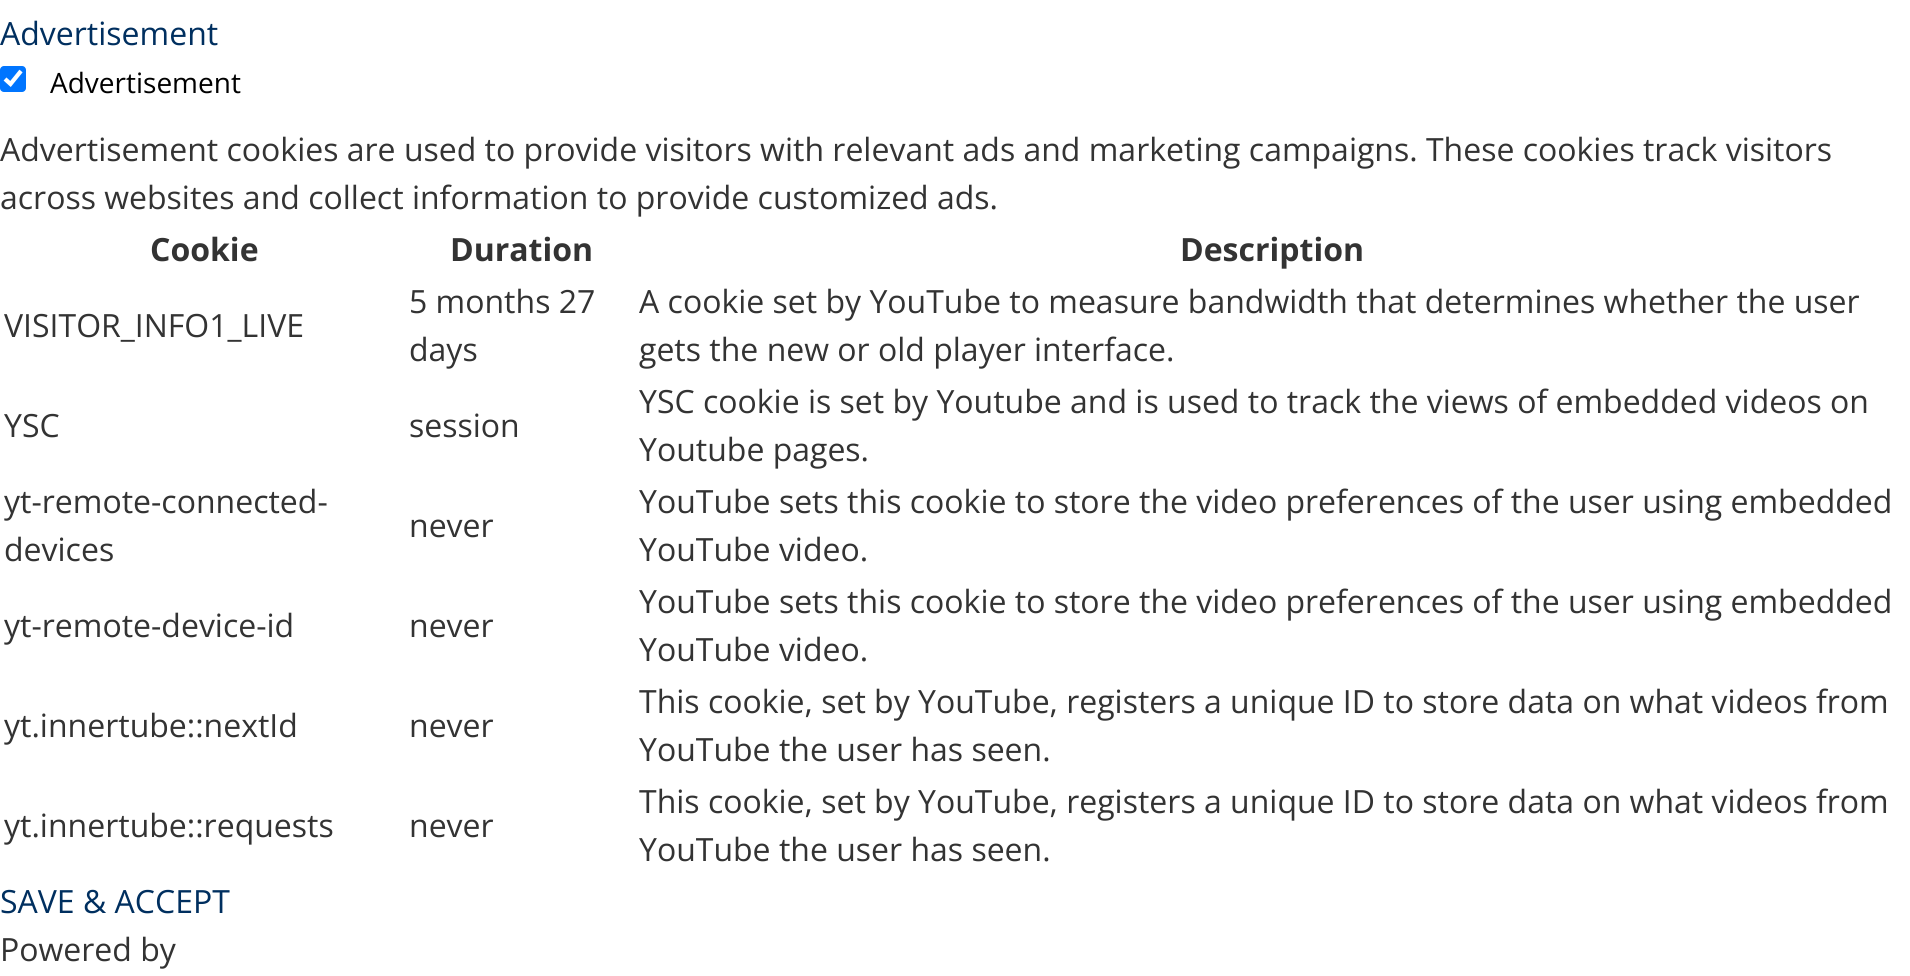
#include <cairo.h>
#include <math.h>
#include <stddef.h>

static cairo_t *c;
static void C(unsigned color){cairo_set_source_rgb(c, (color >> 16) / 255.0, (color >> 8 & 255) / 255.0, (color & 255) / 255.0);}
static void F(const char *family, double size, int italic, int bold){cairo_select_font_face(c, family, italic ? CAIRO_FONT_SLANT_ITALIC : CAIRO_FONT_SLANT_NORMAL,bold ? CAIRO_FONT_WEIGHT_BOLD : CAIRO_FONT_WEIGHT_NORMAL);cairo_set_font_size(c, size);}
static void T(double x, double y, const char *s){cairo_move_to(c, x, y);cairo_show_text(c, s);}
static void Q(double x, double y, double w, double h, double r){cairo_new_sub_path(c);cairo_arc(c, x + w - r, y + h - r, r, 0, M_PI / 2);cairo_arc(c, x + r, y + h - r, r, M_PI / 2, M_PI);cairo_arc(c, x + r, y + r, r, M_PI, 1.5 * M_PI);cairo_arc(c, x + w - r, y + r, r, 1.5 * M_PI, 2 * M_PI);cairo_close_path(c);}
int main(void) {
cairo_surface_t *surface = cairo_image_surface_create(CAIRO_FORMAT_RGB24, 1910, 976);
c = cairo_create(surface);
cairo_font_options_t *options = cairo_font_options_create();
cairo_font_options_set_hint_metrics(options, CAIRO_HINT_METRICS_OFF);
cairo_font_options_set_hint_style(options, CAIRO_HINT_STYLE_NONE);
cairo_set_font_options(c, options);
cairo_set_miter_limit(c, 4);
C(0xffffff);
cairo_paint(c);
F("Open Sans",32,0,0);
C(0x002f5f);
T(0,45,"Advertisement");
C(0x0075ff);
Q(0,66,26,26,4);
cairo_fill(c);
cairo_new_path(c);
cairo_move_to(c,5,79);
cairo_line_to(c,10.5,84);
cairo_line_to(c,21,71);
C(0xffffff);
cairo_set_line_width(c,4.2);
cairo_stroke(c);
F("Open Sans",28,0,0);
C(0x000000);
T(50,93,"Advertisement");
F("Open Sans",32,0,0);
C(0x333333);
T(0,161,"Advertisement cookies are used to provide visitors with relevant ads and marketing campaigns. These cookies track visitors");
T(0,209,"across websites and collect information to provide customized ads.");
F("Open Sans",32,0,1);
T(150,261,"Cookie");
T(450,261,"Duration");
T(1180,261,"Description");
F("Open Sans",32,0,0);
T(4,337,"VISITOR_INFO1_LIVE");
T(409,313,"5 months 27");
T(409,361,"days");
T(639,313,"A cookie set by YouTube to measure bandwidth that determines whether the user");
T(639,361,"gets the new or old player interface.");
T(4,437,"YSC");
T(409,437,"session");
T(639,413,"YSC cookie is set by Youtube and is used to track the views of embedded videos on");
T(639,461,"Youtube pages.");
T(4,513,"yt-remote-connected-");
T(4,561,"devices");
T(409,537,"never");
T(639,513,"YouTube sets this cookie to store the video preferences of the user using embedded");
T(639,561,"YouTube video.");
T(4,637,"yt-remote-device-id");
T(409,637,"never");
T(639,613,"YouTube sets this cookie to store the video preferences of the user using embedded");
T(639,661,"YouTube video.");
T(4,737,"yt.innertube::nextId");
T(409,737,"never");
T(639,713,"This cookie, set by YouTube, registers a unique ID to store data on what videos from");
T(639,761,"YouTube the user has seen.");
T(4,837,"yt.innertube::requests");
T(409,837,"never");
T(639,813,"This cookie, set by YouTube, registers a unique ID to store data on what videos from");
T(639,861,"YouTube the user has seen.");
C(0x002f5f);
T(0,913,"SAVE & ACCEPT");
C(0x333333);
T(0,961,"Powered by");
cairo_surface_write_to_png(surface, "o.png");
cairo_font_options_destroy(options);
cairo_destroy(c);
cairo_surface_destroy(surface);
return 0;
}
